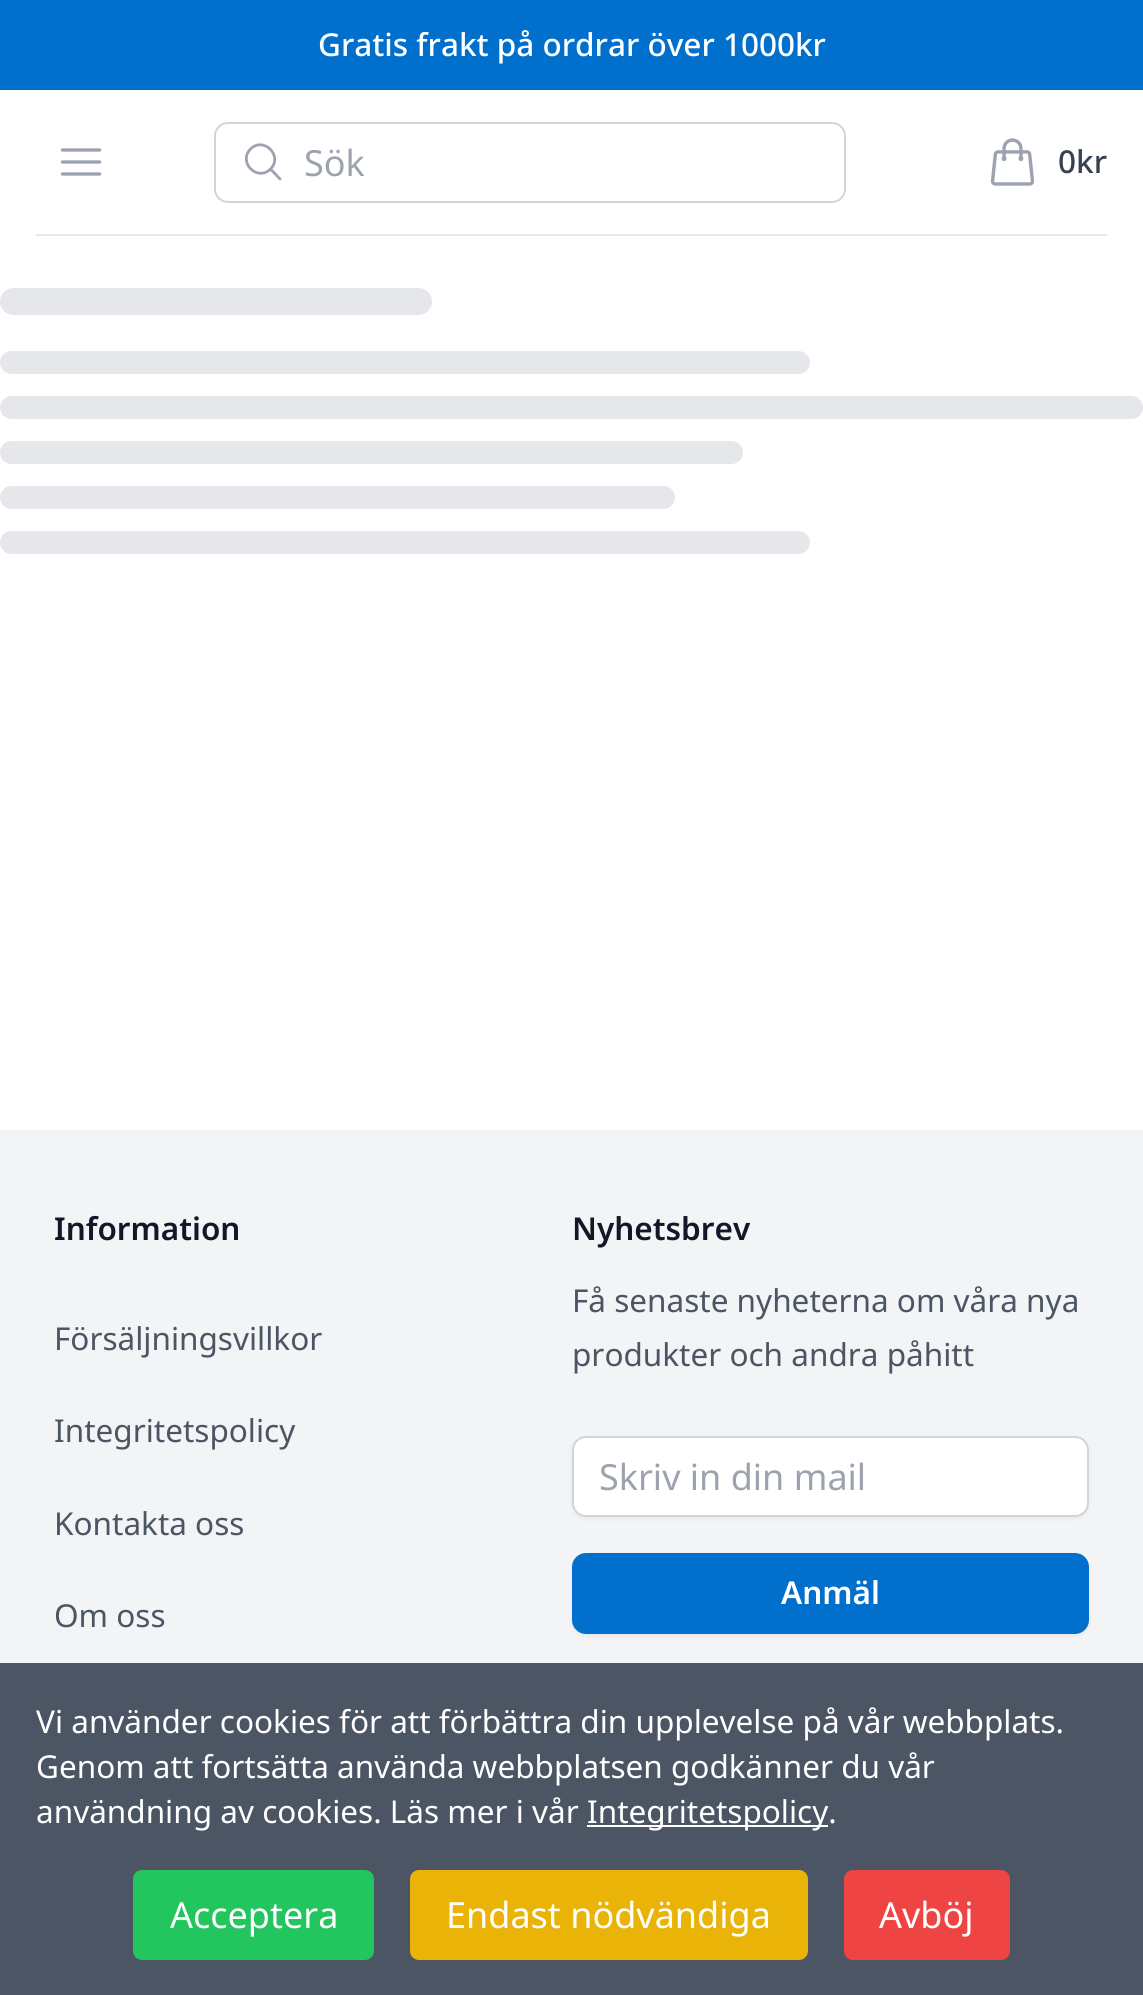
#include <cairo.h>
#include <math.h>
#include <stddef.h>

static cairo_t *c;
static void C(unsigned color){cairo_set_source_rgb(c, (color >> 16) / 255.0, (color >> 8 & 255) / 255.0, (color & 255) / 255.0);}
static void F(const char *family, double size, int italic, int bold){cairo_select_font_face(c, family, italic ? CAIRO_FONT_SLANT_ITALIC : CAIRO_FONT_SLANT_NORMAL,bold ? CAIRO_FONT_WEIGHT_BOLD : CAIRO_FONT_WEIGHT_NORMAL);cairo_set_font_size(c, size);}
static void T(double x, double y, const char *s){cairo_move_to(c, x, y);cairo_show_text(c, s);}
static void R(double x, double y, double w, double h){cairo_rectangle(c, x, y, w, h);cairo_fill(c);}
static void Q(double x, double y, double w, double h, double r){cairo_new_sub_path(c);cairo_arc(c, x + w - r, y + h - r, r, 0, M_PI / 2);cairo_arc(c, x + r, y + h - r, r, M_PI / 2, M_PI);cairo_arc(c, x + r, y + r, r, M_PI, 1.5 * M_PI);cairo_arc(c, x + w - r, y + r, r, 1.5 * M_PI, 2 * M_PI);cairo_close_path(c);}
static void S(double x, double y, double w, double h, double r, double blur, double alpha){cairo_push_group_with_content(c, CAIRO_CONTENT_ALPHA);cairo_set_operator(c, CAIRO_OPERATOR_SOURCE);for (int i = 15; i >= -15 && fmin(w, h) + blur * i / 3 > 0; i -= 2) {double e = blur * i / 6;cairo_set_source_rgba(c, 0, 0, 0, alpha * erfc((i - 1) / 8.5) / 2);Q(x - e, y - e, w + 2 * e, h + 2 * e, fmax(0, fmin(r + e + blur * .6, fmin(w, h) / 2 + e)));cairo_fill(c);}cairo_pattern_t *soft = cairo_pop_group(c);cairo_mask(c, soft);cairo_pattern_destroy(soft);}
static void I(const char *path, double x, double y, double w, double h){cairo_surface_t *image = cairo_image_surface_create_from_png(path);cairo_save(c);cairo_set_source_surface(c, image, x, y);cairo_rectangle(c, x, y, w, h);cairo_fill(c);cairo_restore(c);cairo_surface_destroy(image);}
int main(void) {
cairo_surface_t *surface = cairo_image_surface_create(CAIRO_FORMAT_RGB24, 1143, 1995);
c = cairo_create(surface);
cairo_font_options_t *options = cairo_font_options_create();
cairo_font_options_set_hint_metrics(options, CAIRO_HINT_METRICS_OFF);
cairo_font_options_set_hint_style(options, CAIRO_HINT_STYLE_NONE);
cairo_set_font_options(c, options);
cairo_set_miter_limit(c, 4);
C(0xffffff);
cairo_paint(c);
C(0x0070cc);
R(0,0,1143,90);
F("Noto Sans Medium",31.5,0,0);
C(0xffffff);
T(318,56,"Gratis frakt på ordrar över 1000kr");
C(0xe5e7eb);
R(36,234,1071,2);
cairo_new_path(c);
cairo_move_to(c,62.5,150);
cairo_line_to(c,99.5,150);
cairo_move_to(c,62.5,162);
cairo_line_to(c,99.5,162);
cairo_move_to(c,62.5,174);
cairo_line_to(c,99.5,174);
C(0x9ca3af);
cairo_set_line_width(c,3.4);
cairo_set_line_cap(c,CAIRO_LINE_CAP_ROUND);
cairo_set_line_join(c,CAIRO_LINE_JOIN_ROUND);
cairo_stroke(c);
Q(215,123,630,79,13);
C(0xd1d5db);
cairo_set_line_width(c,2);
cairo_set_line_cap(c,CAIRO_LINE_CAP_BUTT);
cairo_set_line_join(c,CAIRO_LINE_JOIN_MITER);
cairo_stroke(c);
cairo_new_path(c);
cairo_move_to(c,280,179);
cairo_line_to(c,270.5,169);
cairo_move_to(c,270.5,169);
cairo_curve_to(c,283.5,156,263.5,136,250.5,149);
cairo_curve_to(c,237.5,162.5,257.5,182,270.5,169);
cairo_close_path(c);
C(0x9ca3af);
cairo_set_line_width(c,2.8);
cairo_set_line_cap(c,CAIRO_LINE_CAP_ROUND);
cairo_set_line_join(c,CAIRO_LINE_JOIN_ROUND);
cairo_stroke(c);
F("Noto Sans",36,0,0);
T(304,176,"Sök");
I("1.png",990,138,45,48);
F("Noto Sans Medium",31.5,0,0);
C(0x374151);
T(1058,173,"0kr");
C(0xe5e7eb);
Q(0,288,432,27,13.5);
cairo_fill(c);
Q(0,351,810,23,11.5);
cairo_fill(c);
Q(0,396,1143,23,11.5);
cairo_fill(c);
Q(0,441,743,23,11.5);
cairo_fill(c);
Q(0,486,675,23,11.5);
cairo_fill(c);
Q(0,531,810,23,11.5);
cairo_fill(c);
C(0xf3f4f6);
R(0,1130,1143,533);
F("Noto Sans SemiBold",31.5,0,0);
C(0x111827);
T(54,1240,"Information");
F("Noto Sans",31.5,0,0);
C(0x4b5563);
T(54,1350,"Försäljningsvillkor");
T(54,1442,"Integritetspolicy");
T(54,1535,"Kontakta oss");
T(54,1627,"Om oss");
F("Noto Sans SemiBold",31.5,0,0);
C(0x111827);
T(572,1240,"Nyhetsbrev");
F("Noto Sans",31.5,0,0);
C(0x4b5563);
T(572,1312,"Få senaste nyheterna om våra nya");
T(572,1366,"produkter och andra påhitt");
C(0x000000);
S(572,1438,517,81,14,2,.05);
C(0xffffff);
Q(573,1437,515,79,13);
cairo_fill_preserve(c);
C(0xd1d5db);
cairo_set_line_width(c,2);
cairo_set_line_cap(c,CAIRO_LINE_CAP_BUTT);
cairo_set_line_join(c,CAIRO_LINE_JOIN_MITER);
cairo_stroke(c);
F("Noto Sans",36,0,0);
C(0x9ca3af);
T(599,1490,"Skriv in din mail");
C(0x000000);
S(572,1555,517,81,14,2,.05);
C(0x0070cc);
Q(572,1553,517,81,14);
cairo_fill(c);
F("Noto Sans SemiBold",31.5,0,0);
C(0xffffff);
T(781,1604,"Anmäl");
C(0x4b5563);
R(0,1663,1143,332);
F("Noto Sans",31.5,0,0);
C(0xffffff);
T(36,1733,"Vi använder cookies för att förbättra din upplevelse på vår webbplats.");
T(36,1778,"Genom att fortsätta använda webbplatsen godkänner du vår");
T(36,1823,"användning av cookies. Läs mer i vår");
R(587,1825,241,2);
T(587,1823,"Integritetspolicy.");
C(0x22c55e);
Q(133,1870,241,90,9);
cairo_fill(c);
F("Noto Sans",36,0,0);
C(0xffffff);
T(170,1928,"Acceptera");
C(0xeab308);
Q(410,1870,398,90,9);
cairo_fill(c);
C(0xffffff);
T(446,1928,"Endast nödvändiga");
C(0xef4444);
Q(844,1870,166,90,9);
cairo_fill(c);
C(0xffffff);
T(879,1928,"Avböj");
cairo_surface_write_to_png(surface, "o.png");
cairo_font_options_destroy(options);
cairo_destroy(c);
cairo_surface_destroy(surface);
return 0;
}
